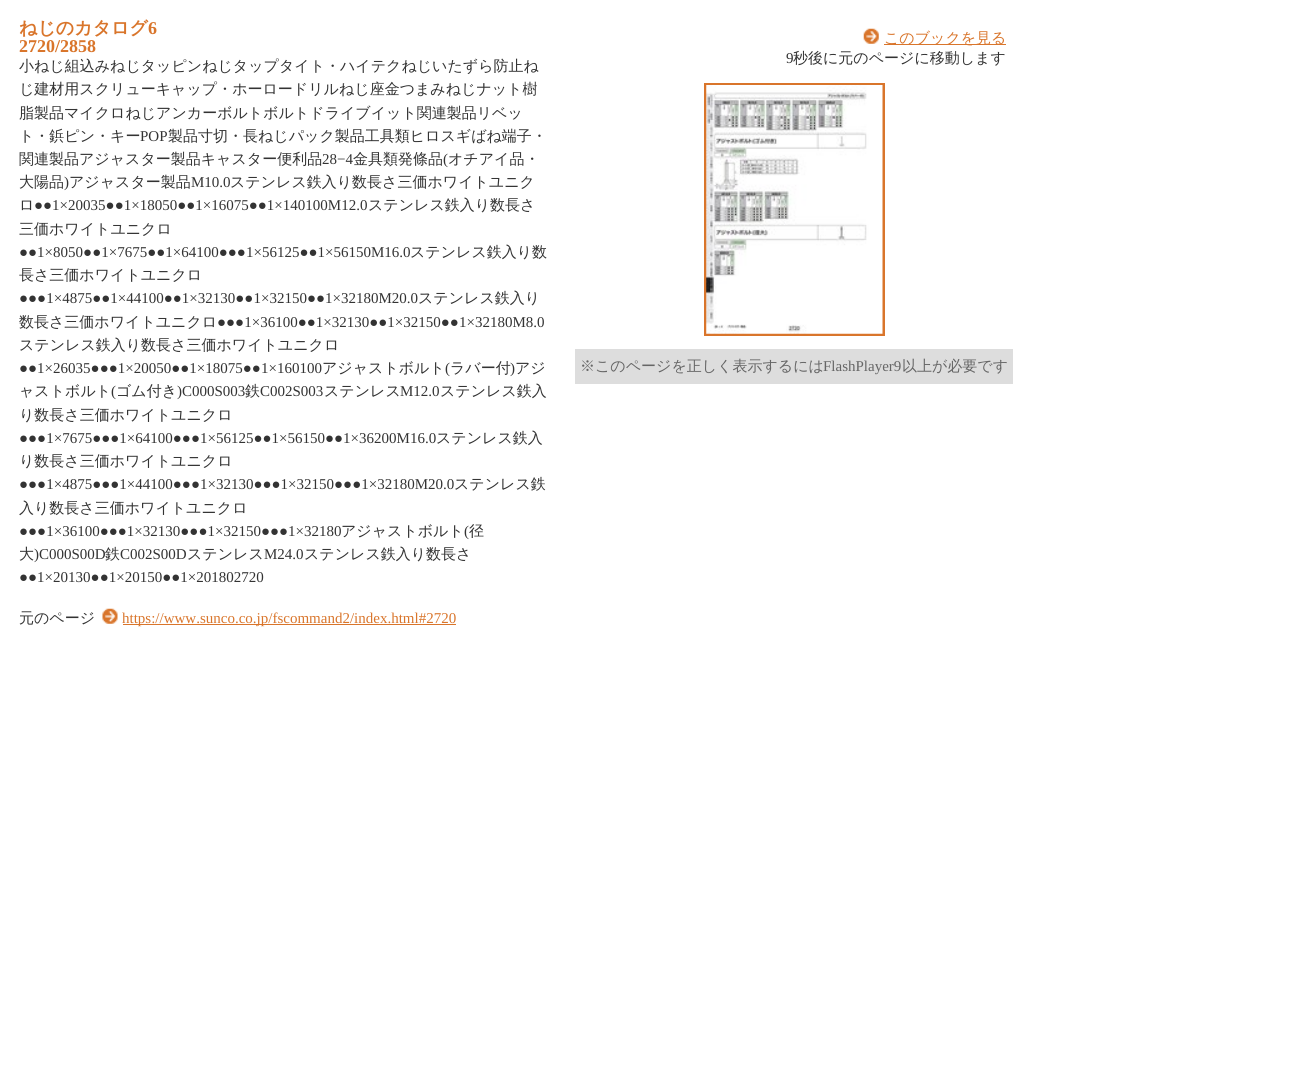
#include <cairo.h>
#include <math.h>
#include <stddef.h>

static cairo_t *c;
static void C(unsigned color){cairo_set_source_rgb(c, (color >> 16) / 255.0, (color >> 8 & 255) / 255.0, (color & 255) / 255.0);}
static void F(const char *family, double size, int italic, int bold){cairo_select_font_face(c, family, italic ? CAIRO_FONT_SLANT_ITALIC : CAIRO_FONT_SLANT_NORMAL,bold ? CAIRO_FONT_WEIGHT_BOLD : CAIRO_FONT_WEIGHT_NORMAL);cairo_set_font_size(c, size);}
static void T(double x, double y, const char *s){cairo_move_to(c, x, y);cairo_show_text(c, s);}
static void R(double x, double y, double w, double h){cairo_rectangle(c, x, y, w, h);cairo_fill(c);}
static void I(const char *path, double x, double y, double w, double h){cairo_surface_t *image = cairo_image_surface_create_from_png(path);cairo_save(c);cairo_set_source_surface(c, image, x, y);cairo_rectangle(c, x, y, w, h);cairo_fill(c);cairo_restore(c);cairo_surface_destroy(image);}
int main(void) {
cairo_surface_t *surface = cairo_image_surface_create(CAIRO_FORMAT_RGB24, 1289, 1089);
c = cairo_create(surface);
cairo_font_options_t *options = cairo_font_options_create();
cairo_font_options_set_hint_metrics(options, CAIRO_HINT_METRICS_OFF);
cairo_font_options_set_hint_style(options, CAIRO_HINT_STYLE_NONE);
cairo_set_font_options(c, options);
cairo_set_miter_limit(c, 4);
C(0xffffff);
cairo_paint(c);
F("WenQuanYi Zen Hei",18,0,1);
C(0xd9752b);
T(19,34,"ねじのカタログ");
F("Liberation Serif",18,0,1);
T(148,34,"6");
T(19,52,"2720/2858");
F("WenQuanYi Zen Hei Medium",15,0,0);
C(0x333333);
T(19,71,"小ねじ組込みねじタッピンねじタップタイト・ハイテクねじいたずら防止ね");
T(19,94,"じ建材用スクリューキャップ・ホーロードリルねじ座金つまみねじナット樹");
T(19,118,"脂製品マイクロねじアンカーボルトボルトドライブイット関連製品リベッ");
T(19,141,"ト・鋲ピン・キー");
F("Liberation Serif",15,0,0);
T(140,141,"POP");
F("WenQuanYi Zen Hei Medium",15,0,0);
T(168,141,"製品寸切・長ねじパック製品工具類ヒロスギばね端子・");
T(19,164,"関連製品アジャスター製品キャスター便利品");
F("Liberation Serif",15,0,0);
T(322,164,"28−4");
F("WenQuanYi Zen Hei Medium",15,0,0);
T(353,164,"金具類発條品");
F("Liberation Serif",15,0,0);
T(443,164,"(");
F("WenQuanYi Zen Hei Medium",15,0,0);
T(448,164,"オチアイ品・");
T(19,187,"大陽品");
F("Liberation Serif",15,0,0);
T(64,187,")");
F("WenQuanYi Zen Hei Medium",15,0,0);
T(69,187,"アジャスター製品");
F("Liberation Serif",15,0,0);
T(191,187,"M10.0");
F("WenQuanYi Zen Hei Medium",15,0,0);
T(230,187,"ステンレス鉄入り数長さ三価ホワイトユニク");
T(19,210,"ロ");
F("Liberation Serif",15,0,0);
T(34,210,"●●1×20035●●1×18050●●1×16075●●1×140100M12.0");
F("WenQuanYi Zen Hei Medium",15,0,0);
T(368,210,"ステンレス鉄入り数長さ");
T(19,234,"三価ホワイトユニクロ");
F("Liberation Serif",15,0,0);
T(19,257,"●●1×8050●●1×7675●●1×64100●●●1×56125●●1×56150M16.0");
F("WenQuanYi Zen Hei Medium",15,0,0);
T(410,257,"ステンレス鉄入り数");
T(19,280,"長さ三価ホワイトユニクロ");
F("Liberation Serif",15,0,0);
T(19,303,"●●●1×4875●●1×44100●●1×32130●●1×32150●●1×32180M20.0");
F("WenQuanYi Zen Hei Medium",15,0,0);
T(418,303,"ステンレス鉄入り");
T(19,327,"数長さ三価ホワイトユニクロ");
F("Liberation Serif",15,0,0);
T(217,327,"●●●1×36100●●1×32130●●1×32150●●1×32180M8.0");
F("WenQuanYi Zen Hei Medium",15,0,0);
T(19,350,"ステンレス鉄入り数長さ三価ホワイトユニクロ");
F("Liberation Serif",15,0,0);
T(19,373,"●●1×26035●●●1×20050●●1×18075●●1×160100");
F("WenQuanYi Zen Hei Medium",15,0,0);
T(322,373,"アジャストボルト");
F("Liberation Serif",15,0,0);
T(445,373,"(");
F("WenQuanYi Zen Hei Medium",15,0,0);
T(450,373,"ラバー付");
F("Liberation Serif",15,0,0);
T(510,373,")");
F("WenQuanYi Zen Hei Medium",15,0,0);
T(515,373,"アジ");
T(19,396,"ャストボルト");
F("Liberation Serif",15,0,0);
T(111,396,"(");
F("WenQuanYi Zen Hei Medium",15,0,0);
T(116,396,"ゴム付き");
F("Liberation Serif",15,0,0);
T(177,396,")C000S003");
F("WenQuanYi Zen Hei Medium",15,0,0);
T(245,396,"鉄");
F("Liberation Serif",15,0,0);
T(260,396,"C002S003");
F("WenQuanYi Zen Hei Medium",15,0,0);
T(324,396,"ステンレス");
F("Liberation Serif",15,0,0);
T(400,396,"M12.0");
F("WenQuanYi Zen Hei Medium",15,0,0);
T(440,396,"ステンレス鉄入");
T(19,420,"り数長さ三価ホワイトユニクロ");
F("Liberation Serif",15,0,0);
T(19,443,"●●●1×7675●●●1×64100●●●1×56125●●1×56150●●1×36200M16.0");
F("WenQuanYi Zen Hei Medium",15,0,0);
T(436,443,"ステンレス鉄入");
T(19,466,"り数長さ三価ホワイトユニクロ");
F("Liberation Serif",15,0,0);
T(19,489,"●●●1×4875●●●1×44100●●●1×32130●●●1×32150●●●1×32180M20.0");
F("WenQuanYi Zen Hei Medium",15,0,0);
T(454,489,"ステンレス鉄");
T(19,513,"入り数長さ三価ホワイトユニクロ");
F("Liberation Serif",15,0,0);
T(19,536,"●●●1×36100●●●1×32130●●●1×32150●●●1×32180");
F("WenQuanYi Zen Hei Medium",15,0,0);
T(341,536,"アジャストボルト");
F("Liberation Serif",15,0,0);
T(464,536,"(");
F("WenQuanYi Zen Hei Medium",15,0,0);
T(469,536,"径");
T(19,559,"大");
F("Liberation Serif",15,0,0);
T(34,559,")C000S00D");
F("WenQuanYi Zen Hei Medium",15,0,0);
T(105,559,"鉄");
F("Liberation Serif",15,0,0);
T(120,559,"C002S00D");
F("WenQuanYi Zen Hei Medium",15,0,0);
T(187,559,"ステンレス");
F("Liberation Serif",15,0,0);
T(264,559,"M24.0");
F("WenQuanYi Zen Hei Medium",15,0,0);
T(304,559,"ステンレス鉄入り数長さ");
F("Liberation Serif",15,0,0);
T(19,582,"●●1×20130●●1×20150●●1×201802720");
F("WenQuanYi Zen Hei Medium",15,0,0);
T(19,623,"元のページ");
I("1.png",102,608,16,16);
C(0xd9752b);
R(123,624,333,1);
F("Liberation Serif",15,0,0);
T(122,623,"https://www.sunco.co.jp/fscommand2/index.html#2720");
I("2.png",863,28,16,16);
R(884,44,122,1);
F("WenQuanYi Zen Hei Medium",15,0,0);
T(884,43,"このブックを見る");
F("Liberation Serif",15,0,0);
C(0x333333);
T(786,63,"9");
F("WenQuanYi Zen Hei Medium",15,0,0);
T(793,63,"秒後に元のページに移動します");
cairo_rectangle(c,705.5,84.5,178,250);
C(0xd9752b);
cairo_set_line_width(c,3);
cairo_stroke(c);
I("3.png",706,85,177,249);
C(0xdddddd);
R(575,349,438,35);
C(0x666666);
T(580,371,"※このページを正しく表示するには");
F("Liberation Serif",15,0,0);
T(823,371,"FlashPlayer9");
F("WenQuanYi Zen Hei Medium",15,0,0);
T(902,371,"以上が必要です");
cairo_surface_write_to_png(surface, "o.png");
cairo_font_options_destroy(options);
cairo_destroy(c);
cairo_surface_destroy(surface);
return 0;
}
